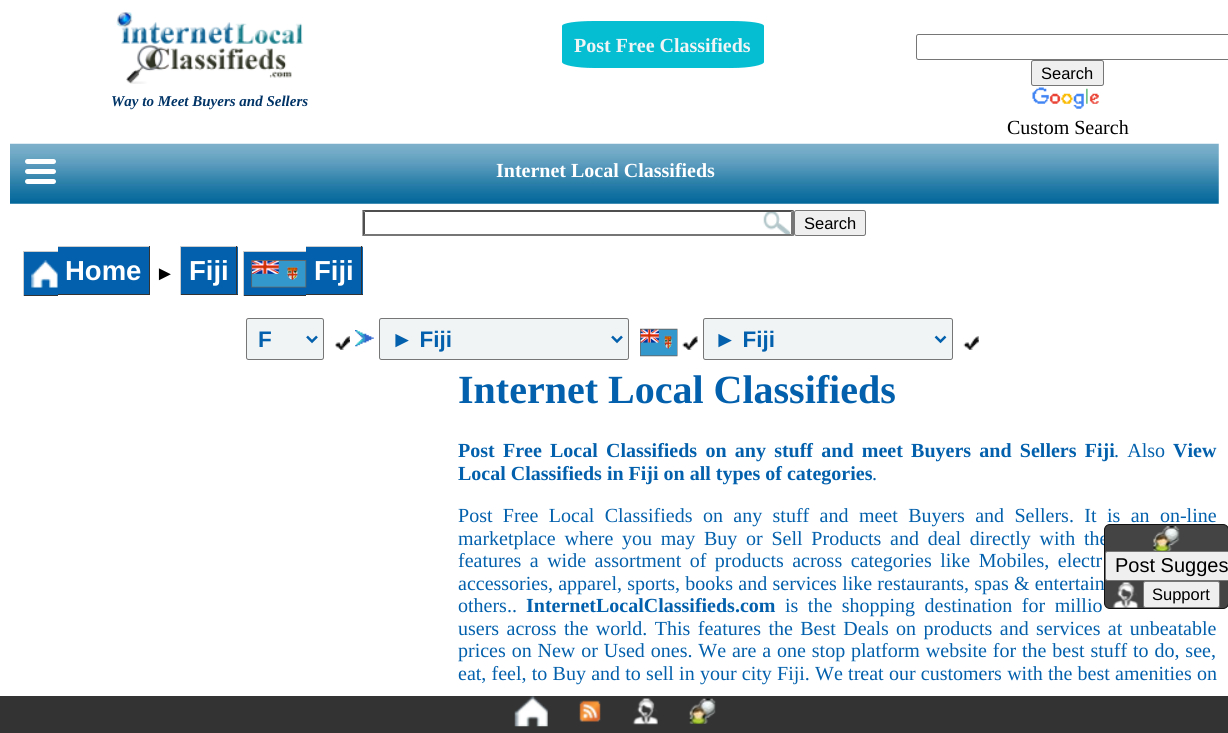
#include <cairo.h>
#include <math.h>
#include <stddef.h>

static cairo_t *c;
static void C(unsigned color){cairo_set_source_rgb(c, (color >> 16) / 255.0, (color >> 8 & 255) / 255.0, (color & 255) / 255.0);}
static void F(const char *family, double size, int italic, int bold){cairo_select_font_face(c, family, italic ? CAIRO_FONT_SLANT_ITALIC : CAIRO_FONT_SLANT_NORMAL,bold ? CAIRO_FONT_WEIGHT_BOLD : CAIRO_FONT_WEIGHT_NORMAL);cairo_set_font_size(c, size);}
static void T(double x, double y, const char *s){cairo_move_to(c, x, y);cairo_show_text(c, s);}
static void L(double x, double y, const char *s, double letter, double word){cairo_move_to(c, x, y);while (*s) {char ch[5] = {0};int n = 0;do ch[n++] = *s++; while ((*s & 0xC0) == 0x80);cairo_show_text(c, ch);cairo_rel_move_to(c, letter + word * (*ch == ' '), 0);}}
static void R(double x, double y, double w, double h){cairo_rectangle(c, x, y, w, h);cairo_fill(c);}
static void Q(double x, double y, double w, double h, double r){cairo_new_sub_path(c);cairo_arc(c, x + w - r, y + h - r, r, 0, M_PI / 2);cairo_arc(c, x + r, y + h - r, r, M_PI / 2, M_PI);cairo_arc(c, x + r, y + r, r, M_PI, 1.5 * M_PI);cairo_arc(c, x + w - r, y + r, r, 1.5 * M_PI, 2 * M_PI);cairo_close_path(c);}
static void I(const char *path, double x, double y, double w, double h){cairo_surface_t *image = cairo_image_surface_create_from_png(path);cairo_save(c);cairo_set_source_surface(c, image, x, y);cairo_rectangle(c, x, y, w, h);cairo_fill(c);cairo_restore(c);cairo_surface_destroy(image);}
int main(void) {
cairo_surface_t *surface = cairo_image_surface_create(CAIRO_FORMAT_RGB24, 1228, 733);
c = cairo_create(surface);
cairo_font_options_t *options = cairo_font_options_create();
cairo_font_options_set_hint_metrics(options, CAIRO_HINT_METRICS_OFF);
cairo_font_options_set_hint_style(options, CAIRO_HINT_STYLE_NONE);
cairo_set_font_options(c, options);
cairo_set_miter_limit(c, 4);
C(0xffffff);
cairo_paint(c);
C(0x05bed2);
cairo_new_path(c);
cairo_move_to(c,594,21);
cairo_line_to(c,732,21);
cairo_curve_to(c,750,21,764,23,764,26);
cairo_line_to(c,764,62);
cairo_curve_to(c,764,65,750,68,732,68);
cairo_line_to(c,594,68);
cairo_curve_to(c,576,68,562,65,562,62);
cairo_line_to(c,562,26);
cairo_curve_to(c,562,23,576,21,594,21);
cairo_close_path(c);
cairo_fill(c);
F("Liberation Serif",20,0,1);
C(0xf1f4f5);
T(574,52,"Post Free Classifieds");
I("1.png",116,12,188,72);
F("Liberation Serif",15,1,1);
C(0x003366);
T(111,106,"Way to Meet Buyers and Sellers");
Q(916.5,34.5,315,25,2);
C(0x767676);
cairo_set_line_width(c,1);
cairo_stroke(c);
C(0xefefef);
Q(1031.5,60.5,72,25,2);
cairo_fill_preserve(c);
C(0x767676);
cairo_stroke(c);
F("Liberation Sans",16.5,0,0);
C(0x000000);
T(1041,79,"Search");
I("2.png",1032,87,67,22);
F("Liberation Serif",20,0,0);
T(1007,134,"Custom Search");
I("3.png",10,143,1209,61);
C(0xffffff);
Q(25,179,31,5,2.5);
cairo_fill(c);
Q(25,169,31,5,2.5);
cairo_fill(c);
Q(25,159,31,5,2.5);
cairo_fill(c);
F("Liberation Serif",20,0,1);
T(496,177,"Internet Local Classifieds");
I("4.png",763,212,28,22);
C(0x4f4f4f);
cairo_new_path(c);
cairo_move_to(c,362,210);
cairo_line_to(c,794,210);
cairo_line_to(c,791,212);
cairo_line_to(c,365,212);
cairo_close_path(c);
cairo_fill(c);
C(0x767676);
cairo_new_path(c);
cairo_move_to(c,794,210);
cairo_line_to(c,794,236);
cairo_line_to(c,791,234);
cairo_line_to(c,791,212.5);
cairo_close_path(c);
cairo_fill(c);
cairo_new_path(c);
cairo_move_to(c,794,236);
cairo_line_to(c,362,236);
cairo_line_to(c,365,234);
cairo_line_to(c,791,234);
cairo_close_path(c);
cairo_fill(c);
C(0x4f4f4f);
cairo_new_path(c);
cairo_move_to(c,362.5,236);
cairo_line_to(c,362.5,210);
cairo_line_to(c,365,212.5);
cairo_line_to(c,365,234);
cairo_close_path(c);
cairo_fill(c);
C(0xefefef);
Q(794.5,210.5,71,25,2);
cairo_fill_preserve(c);
C(0x767676);
cairo_stroke(c);
F("Liberation Sans",16.5,0,0);
C(0x000000);
T(804,229,"Search");
C(0x0260ac);
R(24,252,34,43);
I("5.png",31,260,27,28);
R(58,247,91,47);
F("Liberation Sans",27.5,0,1);
C(0xffffff);
T(65,280,"Home");
C(0xcccccc);
R(23,251,35,1);
C(0x333333);
R(23,295,35,1);
C(0xcccccc);
R(23,251,1,45);
R(58,246,92,1);
C(0x333333);
R(149,246,1,49);
R(58,294,92,1);
F("Liberation Serif",20,0,0);
C(0x000000);
T(155,280,"►");
C(0x0260ac);
R(181,247,57,47);
F("Liberation Sans",27.5,0,1);
C(0xffffff);
T(189,280,"Fiji");
C(0xcccccc);
R(180,246,58,1);
C(0x333333);
R(236,246,1,49);
R(180,294,58,1);
C(0xcccccc);
R(180,246,1,49);
C(0x0260ac);
R(244,252,62,43);
R(306,247,57,47);
I("6.png",251,260,56,28);
C(0xffffff);
T(314,280,"Fiji");
C(0xcccccc);
R(243,251,63,1);
C(0x333333);
R(243,295,63,1);
C(0xcccccc);
R(243,251,1,45);
R(306,246,57,1);
C(0x333333);
R(361,246,1,49);
R(306,294,57,1);
C(0xf1f4f5);
Q(246.5,318.5,77,41,2);
cairo_fill_preserve(c);
C(0x767676);
cairo_stroke(c);
cairo_new_path(c);
cairo_move_to(c,307,336.5);
cairo_line_to(c,312,341.5);
cairo_line_to(c,317,336.5);
C(0x0260ac);
cairo_set_line_width(c,2.5);
cairo_stroke(c);
F("Liberation Sans",22.5,0,1);
T(258,347,"F");
I("7.png",335,336,15,14);
I("8.png",355,330,19,17);
C(0xf1f4f5);
Q(379.5,318.5,249,41,2);
cairo_fill_preserve(c);
C(0x767676);
cairo_set_line_width(c,1);
cairo_stroke(c);
cairo_new_path(c);
cairo_move_to(c,612,336.5);
cairo_line_to(c,617,341.5);
cairo_line_to(c,622,336.5);
C(0x0260ac);
cairo_set_line_width(c,2.5);
cairo_stroke(c);
T(391,347,"► Fiji");
I("9.png",640,328,38,29);
I("10.png",682,336,16,14);
C(0xf1f4f5);
Q(703.5,318.5,249,41,2);
cairo_fill_preserve(c);
C(0x767676);
cairo_set_line_width(c,1);
cairo_stroke(c);
cairo_new_path(c);
cairo_move_to(c,935.5,336.5);
cairo_line_to(c,940.5,341.5);
cairo_line_to(c,945.5,336.5);
C(0x0260ac);
cairo_set_line_width(c,2.5);
cairo_stroke(c);
T(714,347,"► Fiji");
I("11.png",963,336,16,14);
F("Liberation Serif",40,0,1);
T(458,403,"Internet Local Classifieds");
F("Liberation Serif",20,0,1);
L(458,457,"Post Free Local Classifieds on any stuff and meet Buyers and Sellers Fiji",0,3.25);
F("Liberation Serif",20,0,0);
L(1114,457,". Also",0,3.25);
F("Liberation Serif",20,0,1);
T(1173,457,"View");
T(458,480,"Local Classifieds in Fiji on all types of categories");
F("Liberation Serif",20,0,0);
T(872,480,".");
L(458,522,"Post Free Local Classifieds on any stuff and meet Buyers and Sellers. It is an on-line",0,5.4);
L(458,545,"marketplace where you may Buy or Sell Products and deal directly with the",0,3.75);
L(458,567,"features a wide assortment of products across categories like Mobiles, electr",0,3.5);
L(458,590,"accessories, apparel, sports, books and services like restaurants, spas & entertain",0,.25);
T(458,612,"others..");
F("Liberation Serif",20,0,1);
T(526,612,"InternetLocalClassifieds.com");
F("Liberation Serif",20,0,0);
L(785,612,"is the shopping destination for millio",0,4.5);
L(458,635,"users across the world. This features the Best Deals on products and services at unbeatable",0,2.4);
L(458,657,"prices on New or Used ones. We are a one stop platform website for the best stuff to do, see,",0,.9);
L(458,680,"eat, feel, to Buy and to sell in your city Fiji. We treat our customers with the best amenities on",0,.25);
C(0x444444);
Q(1104.5,524.5,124,84,5.5);
cairo_fill_preserve(c);
C(0x111111);
cairo_set_line_width(c,1);
cairo_stroke(c);
I("12.png",1153,526,27,25);
C(0xefefef);
Q(1105.5,551.5,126,29,2);
cairo_fill_preserve(c);
C(0x767676);
cairo_stroke(c);
F("Liberation Sans",20,0,0);
C(0x000000);
T(1115,572,"Post Sugges");
I("13.png",1112,582,27,26);
C(0xefefef);
Q(1143.5,581.5,76,26,2);
cairo_fill_preserve(c);
C(0x767676);
cairo_stroke(c);
F("Liberation Sans",16.5,0,0);
C(0x000000);
T(1152,600,"Support");
C(0x333333);
R(0,696,1228,37);
I("14.png",514,696,34,31);
I("15.png",579,700,22,22);
I("16.png",632,698,26,27);
I("17.png",689,698,27,26);
cairo_surface_write_to_png(surface, "o.png");
cairo_font_options_destroy(options);
cairo_destroy(c);
cairo_surface_destroy(surface);
return 0;
}
